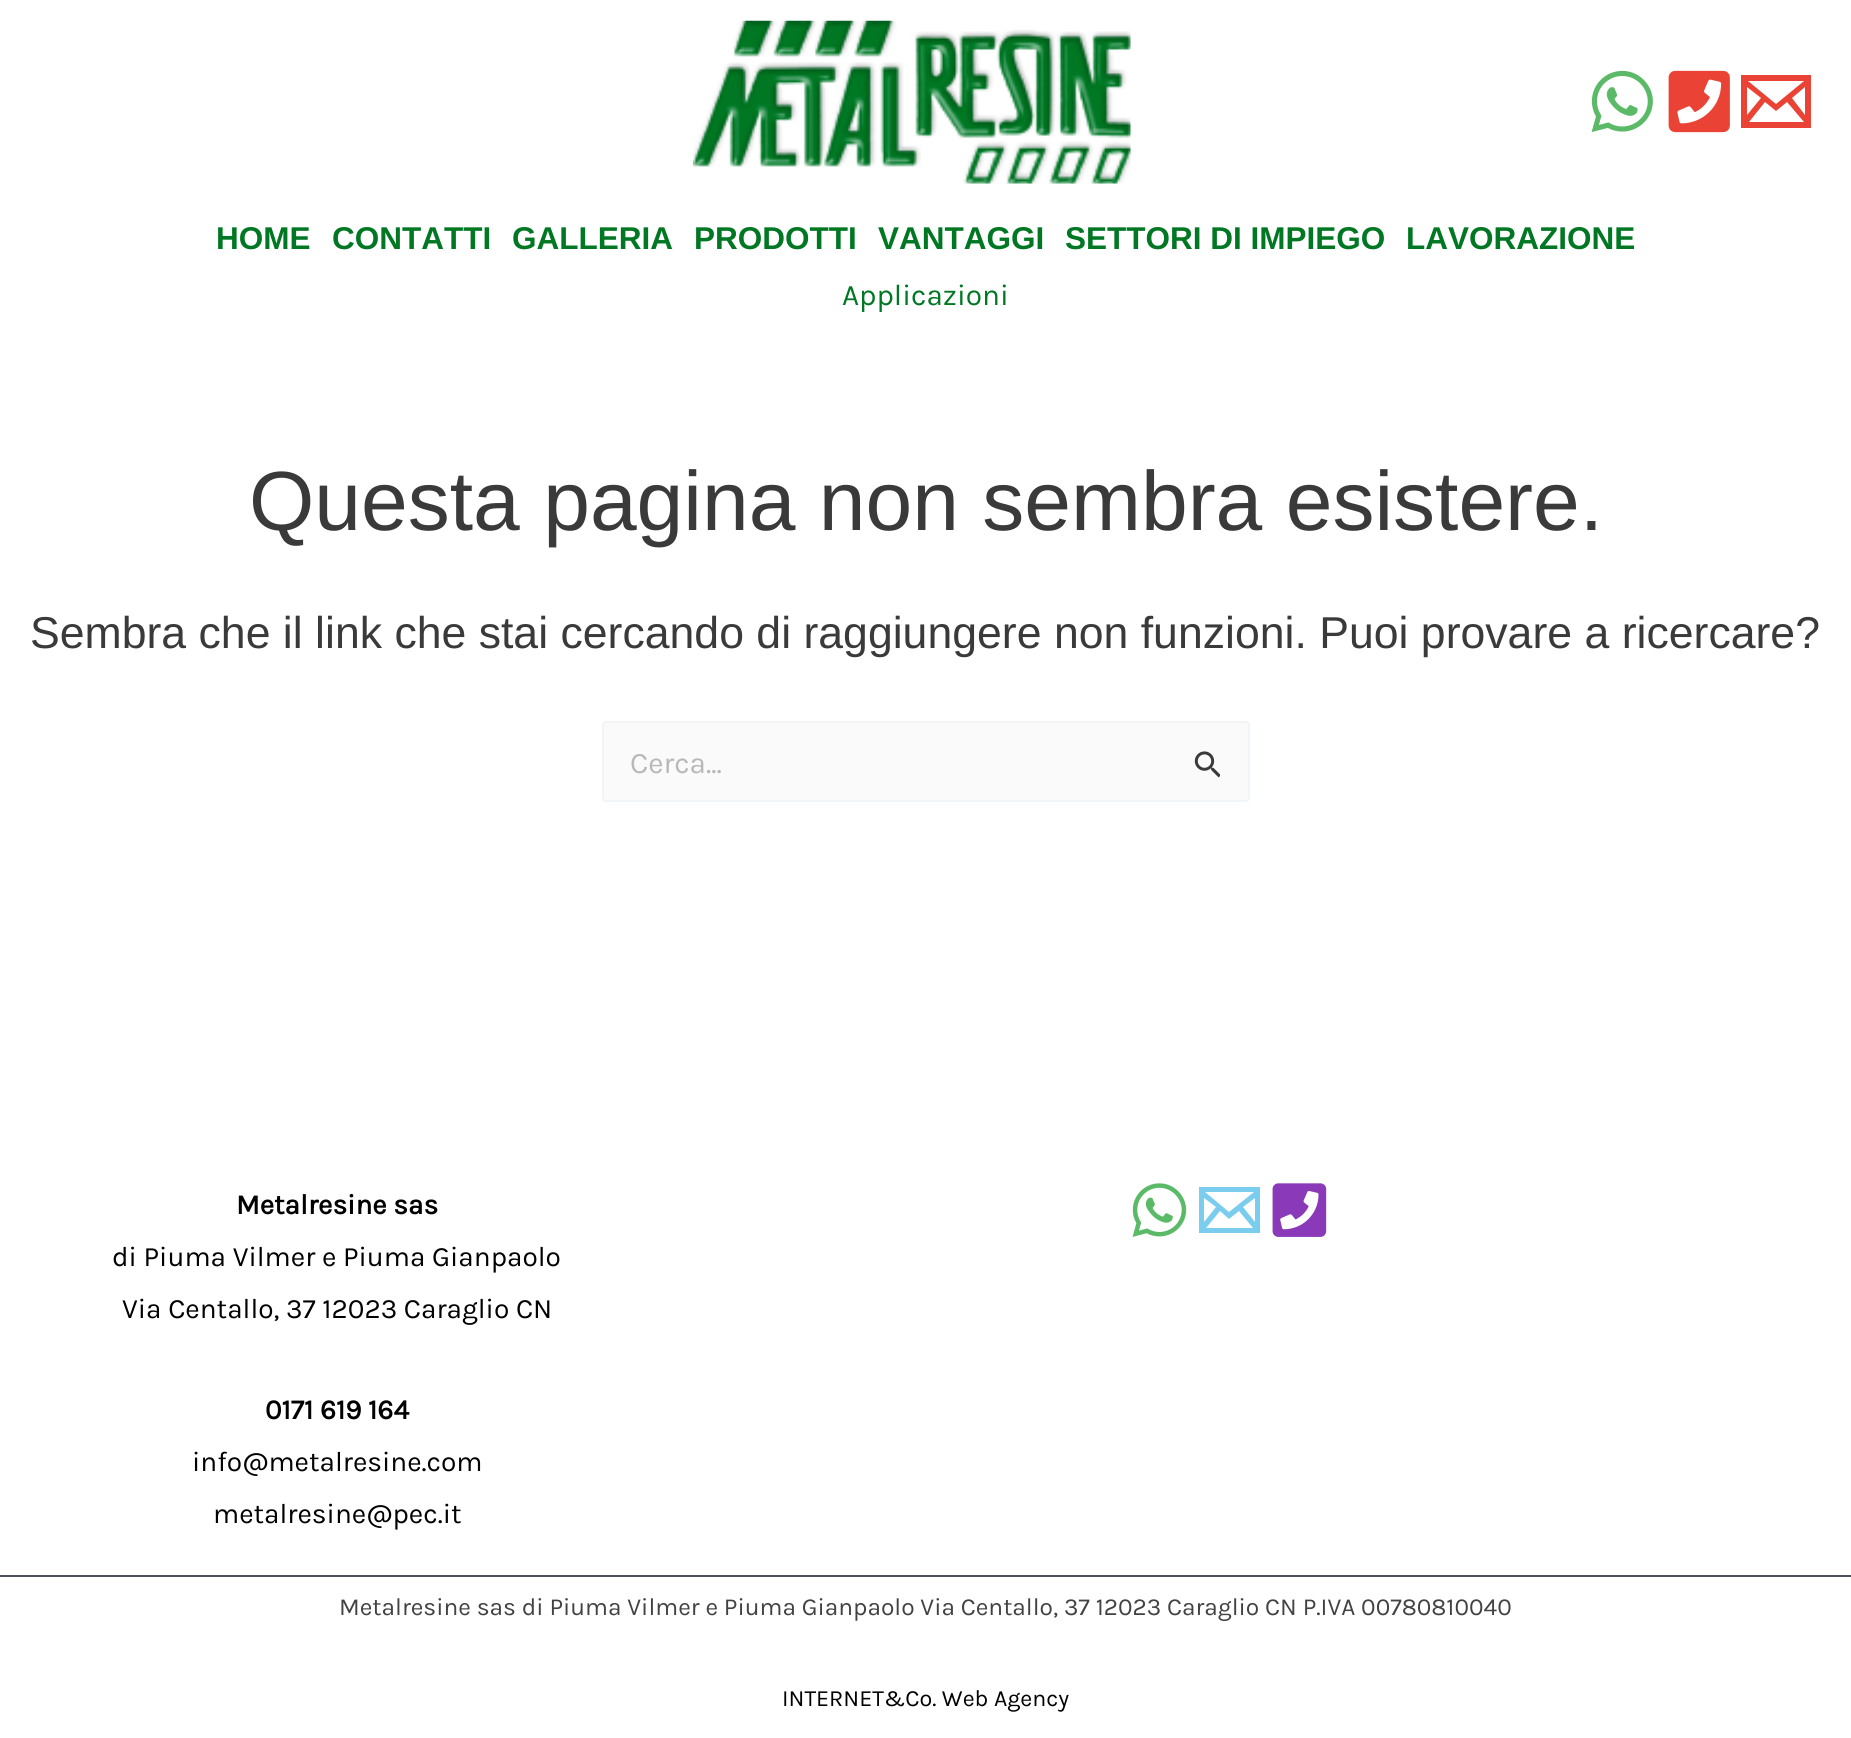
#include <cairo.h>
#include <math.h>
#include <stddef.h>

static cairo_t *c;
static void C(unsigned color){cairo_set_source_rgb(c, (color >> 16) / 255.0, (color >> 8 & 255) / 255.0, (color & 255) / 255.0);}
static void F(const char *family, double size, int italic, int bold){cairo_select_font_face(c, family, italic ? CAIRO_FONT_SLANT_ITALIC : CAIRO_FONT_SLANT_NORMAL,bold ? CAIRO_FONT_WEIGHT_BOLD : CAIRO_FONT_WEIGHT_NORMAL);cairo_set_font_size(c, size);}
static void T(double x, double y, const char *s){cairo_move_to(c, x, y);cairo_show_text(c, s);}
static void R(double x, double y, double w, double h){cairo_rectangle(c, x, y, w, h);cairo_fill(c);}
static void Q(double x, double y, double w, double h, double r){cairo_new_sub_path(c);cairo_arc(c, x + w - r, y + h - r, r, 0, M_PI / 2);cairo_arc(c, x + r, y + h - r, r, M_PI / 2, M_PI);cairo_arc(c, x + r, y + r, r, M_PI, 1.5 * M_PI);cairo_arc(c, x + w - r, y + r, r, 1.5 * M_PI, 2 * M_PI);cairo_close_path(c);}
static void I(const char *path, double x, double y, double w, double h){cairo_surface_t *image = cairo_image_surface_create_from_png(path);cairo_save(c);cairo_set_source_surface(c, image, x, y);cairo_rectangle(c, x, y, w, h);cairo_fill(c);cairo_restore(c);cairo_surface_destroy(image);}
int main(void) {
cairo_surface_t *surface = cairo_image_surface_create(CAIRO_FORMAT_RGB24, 1851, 1738);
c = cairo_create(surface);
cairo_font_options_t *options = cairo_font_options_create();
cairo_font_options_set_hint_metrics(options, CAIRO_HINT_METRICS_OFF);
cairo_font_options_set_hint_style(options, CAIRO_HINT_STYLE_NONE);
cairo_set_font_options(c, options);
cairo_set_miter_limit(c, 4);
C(0xffffff);
cairo_paint(c);
I("1.png",693,20,438,164);
I("2.png",1591,70,62,63);
I("3.png",1668,70,62,63);
C(0xea4335);
cairo_new_path(c);
cairo_move_to(c,1741,75);
cairo_line_to(c,1741,128);
cairo_line_to(c,1811,128);
cairo_line_to(c,1811,75);
cairo_close_path(c);
cairo_move_to(c,1761,98);
cairo_line_to(c,1747,115);
cairo_line_to(c,1747,87);
cairo_close_path(c);
cairo_move_to(c,1748,81);
cairo_line_to(c,1804,81);
cairo_line_to(c,1776,104);
cairo_close_path(c);
cairo_move_to(c,1765,102);
cairo_line_to(c,1776,111);
cairo_line_to(c,1787,102);
cairo_line_to(c,1804,122);
cairo_line_to(c,1749,122);
cairo_close_path(c);
cairo_move_to(c,1792,98);
cairo_line_to(c,1805,87);
cairo_line_to(c,1805,115);
cairo_close_path(c);
cairo_fill(c);
F("Liberation Sans",31.5,0,1);
C(0x007722);
T(216,249,"HOME");
T(332,249,"CONTATTI");
T(512,249,"GALLERIA");
T(694,249,"PRODOTTI");
T(878,249,"VANTAGGI");
T(1065,249,"SETTORI DI IMPIEGO");
T(1406,249,"LAVORAZIONE");
F("Karla",29.75,0,0);
T(842,305,"Applicazioni");
F("Liberation Sans",84,0,0);
C(0x3a3a3a);
T(249,530,"Questa pagina non sembra esistere.");
F("Liberation Sans",44.6,0,0);
T(30,648,"Sembra che il link che stai cercando di raggiungere non funzioni. Puoi provare a ricercare?");
C(0xfafafa);
Q(603,722,646,79,3);
cairo_fill_preserve(c);
C(0xf2f5f7);
cairo_stroke(c);
F("Karla",29.75,0,0);
C(0xb8b8b8);
T(630,773,"Cerca...");
I("4.png",1194,751,26,27);
F("Karla",28,0,1);
C(0x000000);
T(236,1214,"Metalresine sas");
F("Karla",28,0,0);
T(112,1266,"di Piuma Vilmer e Piuma Gianpaolo");
T(122,1318,"Via Centallo, 37 12023 Caraglio CN");
F("Karla",28,0,1);
T(265,1419,"0171 619 164");
F("Karla",28,0,0);
T(192,1471,"info@metalresine.com");
T(213,1523,"metalresine@pec.it");
I("5.png",1132,1183,55,54);
C(0x7acdee);
cairo_new_path(c);
cairo_move_to(c,1199,1187);
cairo_line_to(c,1199,1233);
cairo_line_to(c,1260,1233);
cairo_line_to(c,1260,1187);
cairo_close_path(c);
cairo_move_to(c,1216,1207);
cairo_line_to(c,1204,1222);
cairo_line_to(c,1204,1198);
cairo_close_path(c);
cairo_move_to(c,1205,1192);
cairo_line_to(c,1254,1192);
cairo_line_to(c,1229,1212);
cairo_close_path(c);
cairo_move_to(c,1220,1211);
cairo_line_to(c,1229,1219);
cairo_line_to(c,1239,1211);
cairo_line_to(c,1253,1228);
cairo_line_to(c,1206,1228);
cairo_close_path(c);
cairo_move_to(c,1243,1207);
cairo_line_to(c,1255,1198);
cairo_line_to(c,1255,1222);
cairo_close_path(c);
cairo_fill(c);
I("6.png",1272,1183,55,54);
C(0x4b4f58);
R(0,1575,1851,2);
F("Karla",24.5,0,0);
C(0x424242);
T(339,1615,"Metalresine sas di Piuma Vilmer e Piuma Gianpaolo Via Centallo, 37 12023 Caraglio CN P.IVA 00780810040");
F("Karla",23.25,0,0);
C(0x000000);
T(782,1706,"INTERNET&Co. Web Agency");
cairo_surface_write_to_png(surface, "o.png");
cairo_font_options_destroy(options);
cairo_destroy(c);
cairo_surface_destroy(surface);
return 0;
}
